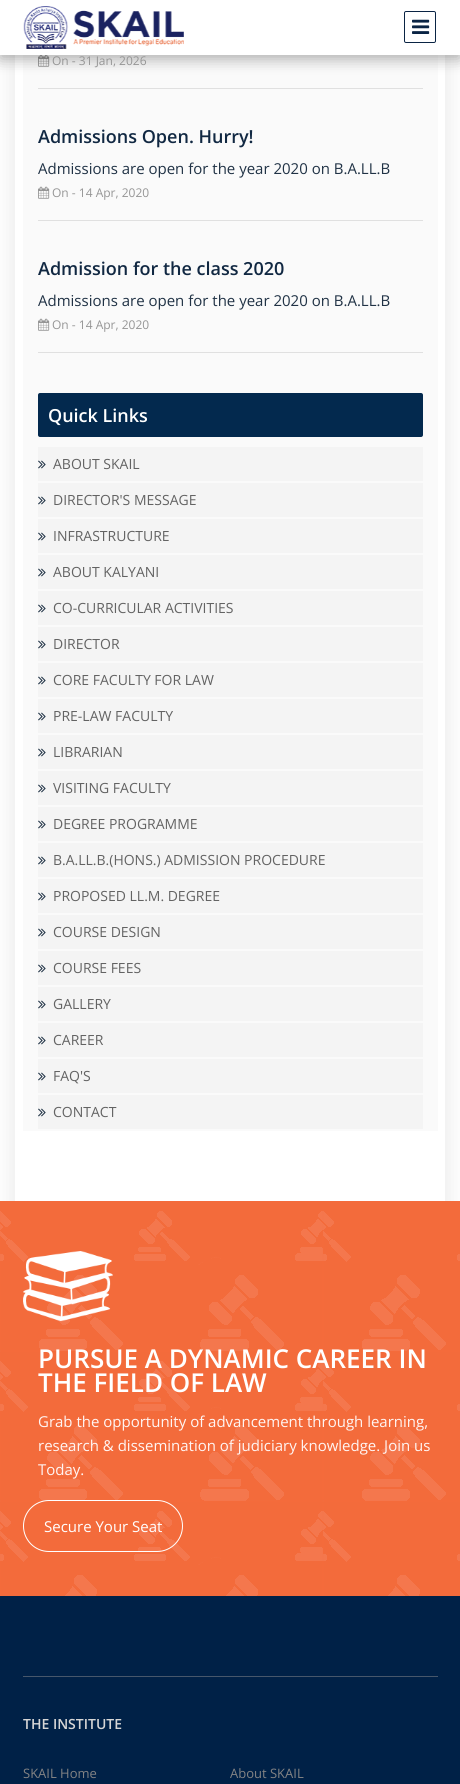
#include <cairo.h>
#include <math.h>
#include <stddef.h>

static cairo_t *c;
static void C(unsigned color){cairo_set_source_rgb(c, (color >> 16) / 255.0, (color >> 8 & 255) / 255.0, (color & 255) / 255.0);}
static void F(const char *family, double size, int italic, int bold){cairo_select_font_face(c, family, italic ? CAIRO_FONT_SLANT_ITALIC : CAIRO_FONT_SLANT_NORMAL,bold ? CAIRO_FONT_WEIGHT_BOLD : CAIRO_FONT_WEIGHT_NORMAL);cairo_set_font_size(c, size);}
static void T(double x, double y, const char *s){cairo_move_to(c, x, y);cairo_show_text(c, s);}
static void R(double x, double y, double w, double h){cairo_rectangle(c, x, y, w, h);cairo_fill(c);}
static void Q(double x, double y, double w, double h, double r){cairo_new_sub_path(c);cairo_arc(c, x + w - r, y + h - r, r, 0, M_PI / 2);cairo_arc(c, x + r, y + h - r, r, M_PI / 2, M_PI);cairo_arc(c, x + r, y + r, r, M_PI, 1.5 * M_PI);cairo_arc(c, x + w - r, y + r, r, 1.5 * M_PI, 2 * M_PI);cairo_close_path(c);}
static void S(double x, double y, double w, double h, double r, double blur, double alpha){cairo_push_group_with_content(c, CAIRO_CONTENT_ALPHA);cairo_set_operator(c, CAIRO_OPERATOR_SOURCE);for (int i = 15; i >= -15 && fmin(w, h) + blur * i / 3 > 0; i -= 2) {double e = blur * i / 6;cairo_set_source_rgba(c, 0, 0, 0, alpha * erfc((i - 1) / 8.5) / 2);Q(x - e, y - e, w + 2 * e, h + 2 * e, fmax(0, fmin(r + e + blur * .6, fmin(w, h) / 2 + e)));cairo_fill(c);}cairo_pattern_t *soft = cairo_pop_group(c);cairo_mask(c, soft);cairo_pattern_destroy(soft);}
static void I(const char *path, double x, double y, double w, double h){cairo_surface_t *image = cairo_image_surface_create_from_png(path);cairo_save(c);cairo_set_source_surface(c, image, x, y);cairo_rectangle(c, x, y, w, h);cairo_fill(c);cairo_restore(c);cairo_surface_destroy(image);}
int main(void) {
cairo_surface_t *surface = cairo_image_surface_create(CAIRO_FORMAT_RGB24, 460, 1784);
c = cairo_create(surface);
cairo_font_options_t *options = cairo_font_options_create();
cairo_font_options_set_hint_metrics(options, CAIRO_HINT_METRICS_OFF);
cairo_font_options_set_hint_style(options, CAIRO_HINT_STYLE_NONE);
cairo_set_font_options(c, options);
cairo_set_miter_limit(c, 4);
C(0xffffff);
cairo_paint(c);
cairo_save(c);
cairo_set_fill_rule(c,CAIRO_FILL_RULE_EVEN_ODD);
cairo_new_path(c);
cairo_move_to(c,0,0);
cairo_line_to(c,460,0);
cairo_line_to(c,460,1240);
cairo_line_to(c,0,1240);
cairo_close_path(c);
cairo_move_to(c,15,-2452);
cairo_line_to(c,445,-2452);
cairo_line_to(c,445,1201);
cairo_line_to(c,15,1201);
cairo_close_path(c);
cairo_clip(c);
C(0x000000);
S(11,-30,438,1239,0,10,.08);
cairo_restore(c);
C(0xfafafa);
R(23,55,415,1076);
I("3.png",38,55,12,12);
C(0x000000);
S(0,4,460,55,0,7.5,.32);
C(0xffffff);
R(0,0,460,55);
I("1.png",23,6,161,43);
Q(404.5,11.5,31,31,1.5);
C(0x0a2444);
cairo_set_line_width(c,1);
cairo_stroke(c);
I("2.png",412,19,18,15);
C(0xe0e0e0);
R(38,88,385,1);
F("Open Sans",12,0,0);
C(0x959595);
T(52,65,"On - 31 Jan, 2026");
C(0xe0e0e0);
R(38,220,385,1);
F("Open Sans SemiBold",18,0,0);
C(0x112842);
T(38,143,"Admissions Open. Hurry!");
F("Open Sans",15,0,0);
C(0x203245);
T(38,174,"Admissions are open for the year 2020 on B.A.LL.B");
I("4.png",38,186,12,13);
F("Open Sans",12,0,0);
C(0x959595);
T(52,197,"On - 14 Apr, 2020");
C(0xe0e0e0);
R(38,352,385,1);
F("Open Sans SemiBold",18,0,0);
C(0x112842);
T(38,275,"Admission for the class 2020");
F("Open Sans",15,0,0);
C(0x203245);
T(38,306,"Admissions are open for the year 2020 on B.A.LL.B");
I("4.png",38,318,12,13);
F("Open Sans",12,0,0);
C(0x959595);
T(52,329,"On - 14 Apr, 2020");
C(0x03294e);
Q(38,393,385,44,2);
cairo_fill(c);
F("Open Sans SemiBold",18,0,0);
C(0xffffff);
T(48,422,"Quick Links");
C(0xf4f4f4);
R(38,447,385,34);
I("5.png",38,460,8,9);
F("Open Sans",14,0,0);
C(0x636363);
T(53,469,"ABOUT SKAIL");
C(0xf4f4f4);
R(38,483,385,34);
I("5.png",38,496,8,9);
C(0x636363);
T(53,505,"DIRECTOR'S MESSAGE");
C(0xf4f4f4);
R(38,519,385,34);
I("5.png",38,532,8,9);
C(0x636363);
T(53,541,"INFRASTRUCTURE");
C(0xf4f4f4);
R(38,555,385,34);
I("5.png",38,568,8,9);
C(0x636363);
T(53,577,"ABOUT KALYANI");
C(0xf4f4f4);
R(38,591,385,34);
I("5.png",38,604,8,9);
C(0x636363);
T(53,613,"CO-CURRICULAR ACTIVITIES");
C(0xf4f4f4);
R(38,627,385,34);
I("5.png",38,640,8,9);
C(0x636363);
T(53,649,"DIRECTOR");
C(0xf4f4f4);
R(38,663,385,34);
I("5.png",38,676,8,9);
C(0x636363);
T(53,685,"CORE FACULTY FOR LAW");
C(0xf4f4f4);
R(38,699,385,34);
I("5.png",38,712,8,9);
C(0x636363);
T(53,721,"PRE-LAW FACULTY");
C(0xf4f4f4);
R(38,735,385,34);
I("5.png",38,748,8,9);
C(0x636363);
T(53,757,"LIBRARIAN");
C(0xf4f4f4);
R(38,771,385,34);
I("5.png",38,784,8,9);
C(0x636363);
T(53,793,"VISITING FACULTY");
C(0xf4f4f4);
R(38,807,385,34);
I("5.png",38,820,8,9);
C(0x636363);
T(53,829,"DEGREE PROGRAMME");
C(0xf4f4f4);
R(38,843,385,34);
I("5.png",38,856,8,9);
C(0x636363);
T(53,865,"B.A.LL.B.(HONS.) ADMISSION PROCEDURE");
C(0xf4f4f4);
R(38,879,385,34);
I("5.png",38,892,8,9);
C(0x636363);
T(53,901,"PROPOSED LL.M. DEGREE");
C(0xf4f4f4);
R(38,915,385,34);
I("5.png",38,928,8,9);
C(0x636363);
T(53,937,"COURSE DESIGN");
C(0xf4f4f4);
R(38,951,385,34);
I("5.png",38,964,8,9);
C(0x636363);
T(53,973,"COURSE FEES");
C(0xf4f4f4);
R(38,987,385,34);
I("5.png",38,1000,8,9);
C(0x636363);
T(53,1009,"GALLERY");
C(0xf4f4f4);
R(38,1023,385,34);
I("5.png",38,1036,8,9);
C(0x636363);
T(53,1045,"CAREER");
C(0xf4f4f4);
R(38,1059,385,34);
I("5.png",38,1072,8,9);
C(0x636363);
T(53,1081,"FAQ'S");
C(0xf4f4f4);
R(38,1095,385,34);
I("5.png",38,1108,8,9);
C(0x636363);
T(53,1117,"CONTACT");
C(0xf36b3b);
R(0,1201,460,395);
I("6.png",0,1211,460,385);
I("7.png",23,1251,90,71);
F("Open Sans SemiBold",26,0,0);
C(0xffffff);
T(38,1368,"PURSUE A DYNAMIC CAREER IN");
T(38,1392,"THE FIELD OF LAW");
F("Open Sans",15,0,0);
C(0xfff5f3);
T(38,1427,"Grab the opportunity of advancement through learning,");
T(38,1451,"research & dissemination of judiciary knowledge. Join us");
T(38,1475,"Today.");
Q(23.5,1500.5,159,51,25.5);
C(0xffffff);
cairo_stroke(c);
T(44,1532,"Secure Your Seat");
C(0x002147);
R(0,1596,460,188);
C(0x47576b);
R(23,1676,415,1);
F("Open Sans SemiBold",14,0,0);
C(0xd6d6d6);
T(23,1729,"THE INSTITUTE");
F("Open Sans",13,0,0);
C(0x838384);
T(23,1778,"SKAIL Home");
T(230,1778,"About SKAIL");
cairo_surface_write_to_png(surface, "o.png");
cairo_font_options_destroy(options);
cairo_destroy(c);
cairo_surface_destroy(surface);
return 0;
}
